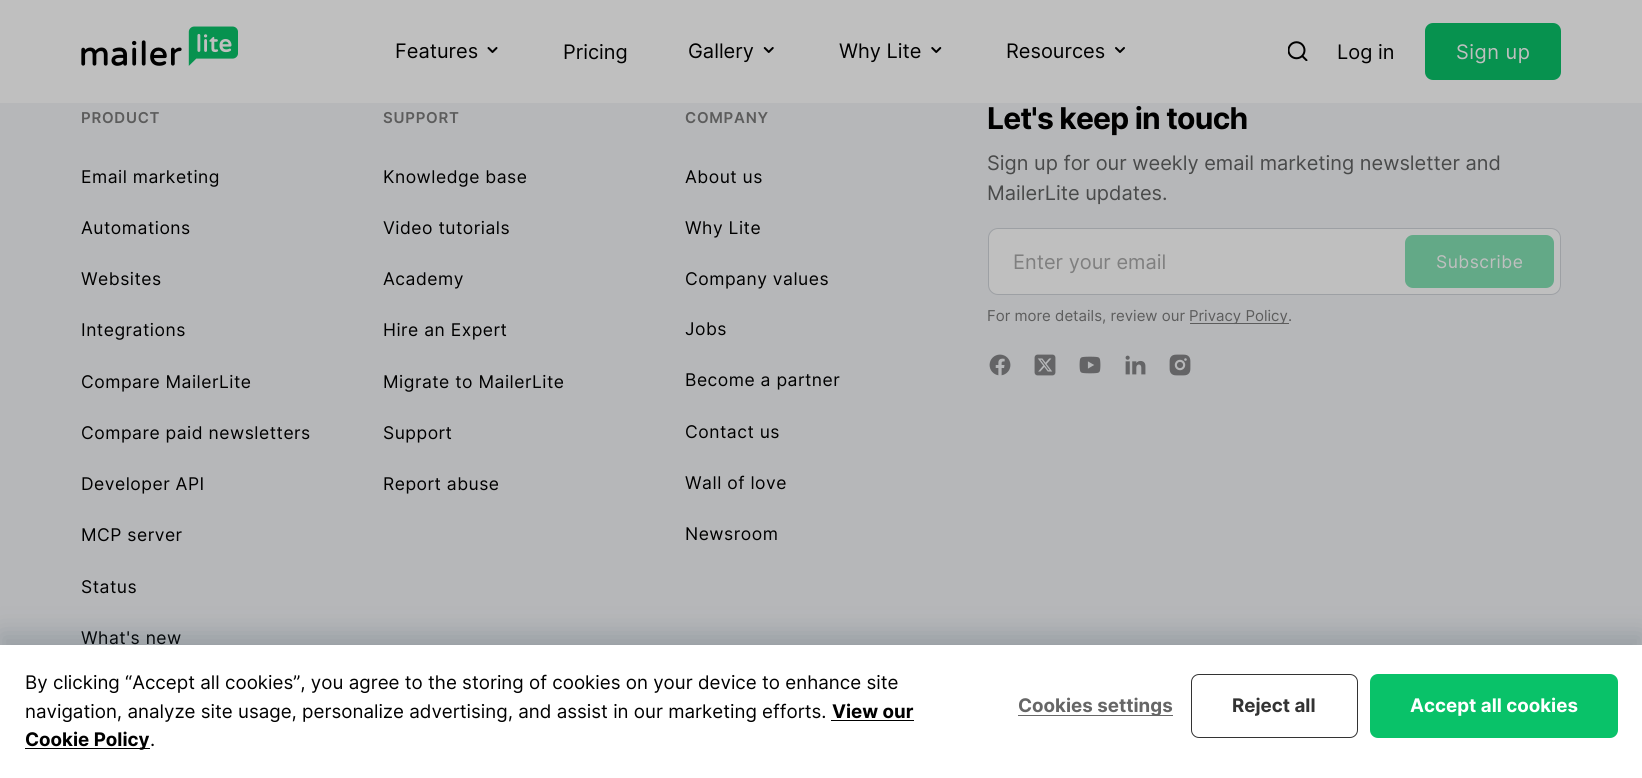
#include <cairo.h>
#include <math.h>
#include <stddef.h>

static cairo_t *c;
static void C(unsigned color){cairo_set_source_rgb(c, (color >> 16) / 255.0, (color >> 8 & 255) / 255.0, (color & 255) / 255.0);}
static void F(const char *family, double size, int italic, int bold){cairo_select_font_face(c, family, italic ? CAIRO_FONT_SLANT_ITALIC : CAIRO_FONT_SLANT_NORMAL,bold ? CAIRO_FONT_WEIGHT_BOLD : CAIRO_FONT_WEIGHT_NORMAL);cairo_set_font_size(c, size);}
static void T(double x, double y, const char *s){cairo_move_to(c, x, y);cairo_show_text(c, s);}
static void L(double x, double y, const char *s, double letter, double word){cairo_move_to(c, x, y);while (*s) {char ch[5] = {0};int n = 0;do ch[n++] = *s++; while ((*s & 0xC0) == 0x80);cairo_show_text(c, ch);cairo_rel_move_to(c, letter + word * (*ch == ' '), 0);}}
static void R(double x, double y, double w, double h){cairo_rectangle(c, x, y, w, h);cairo_fill(c);}
static void Q(double x, double y, double w, double h, double r){cairo_new_sub_path(c);cairo_arc(c, x + w - r, y + h - r, r, 0, M_PI / 2);cairo_arc(c, x + r, y + h - r, r, M_PI / 2, M_PI);cairo_arc(c, x + r, y + r, r, M_PI, 1.5 * M_PI);cairo_arc(c, x + w - r, y + r, r, 1.5 * M_PI, 2 * M_PI);cairo_close_path(c);}
static void S(double x, double y, double w, double h, double r, double blur, double alpha){cairo_push_group_with_content(c, CAIRO_CONTENT_ALPHA);cairo_set_operator(c, CAIRO_OPERATOR_SOURCE);for (int i = 15; i >= -15 && fmin(w, h) + blur * i / 3 > 0; i -= 2) {double e = blur * i / 6;cairo_set_source_rgba(c, 0, 0, 0, alpha * erfc((i - 1) / 8.5) / 2);Q(x - e, y - e, w + 2 * e, h + 2 * e, fmax(0, fmin(r + e + blur * .6, fmin(w, h) / 2 + e)));cairo_fill(c);}cairo_pattern_t *soft = cairo_pop_group(c);cairo_mask(c, soft);cairo_pattern_destroy(soft);}
static void I(const char *path, double x, double y, double w, double h){cairo_surface_t *image = cairo_image_surface_create_from_png(path);cairo_save(c);cairo_set_source_surface(c, image, x, y);cairo_rectangle(c, x, y, w, h);cairo_fill(c);cairo_restore(c);cairo_surface_destroy(image);}
int main(void) {
cairo_surface_t *surface = cairo_image_surface_create(CAIRO_FORMAT_RGB24, 1642, 778);
c = cairo_create(surface);
cairo_font_options_t *options = cairo_font_options_create();
cairo_font_options_set_hint_metrics(options, CAIRO_HINT_METRICS_OFF);
cairo_font_options_set_hint_style(options, CAIRO_HINT_STYLE_NONE);
cairo_set_font_options(c, options);
cairo_set_miter_limit(c, 4);
C(0xb6b7b9);
cairo_paint(c);
C(0xbfbfbf);
R(0,0,1642,103);
I("1.png",81,26,157,40);
F("Inter",20,0,0);
C(0x000000);
T(395,58,"Features");
I("2.png",487,47,11,6);
T(563,59,"Pricing");
T(688,58,"Gallery");
I("3.png",763,47,11,6);
T(839,58,"Why Lite");
I("4.png",931,47,11,6);
T(1006,58,"Resources");
I("5.png",1115,47,10,6);
I("6.png",1288,41,20,20);
T(1337,59,"Log in");
C(0x07924f);
Q(1425,23,136,57,8);
cairo_fill(c);
C(0xbfbfbf);
L(1456,59,"Sign up",.5,0);
F("Inter SemiBold",15,0,0);
C(0x5c5c5c);
L(81,123,"PRODUCT",.75,0);
F("Inter",17.5,0,0);
C(0x000000);
L(81,183,"Email marketing",.5,0);
L(81,234,"Automations",.5,0);
L(81,285,"Websites",.5,0);
L(81,336,"Integrations",.5,0);
L(81,388,"Compare MailerLite",.5,0);
L(81,439,"Compare paid newsletters",.5,0);
L(81,490,"Developer API",.5,0);
L(81,541,"MCP server",.5,0);
L(81,593,"Status",.5,0);
L(81,644,"What's new",.5,0);
F("Inter SemiBold",15,0,0);
C(0x5c5c5c);
L(383,123,"SUPPORT",.75,0);
F("Inter",17.5,0,0);
C(0x000000);
L(383,183,"Knowledge base",.5,0);
L(383,234,"Video tutorials",.5,0);
L(383,285,"Academy",.5,0);
L(383,336,"Hire an Expert",.5,0);
L(383,388,"Migrate to MailerLite",.5,0);
L(383,439,"Support",.5,0);
L(383,490,"Report abuse",.5,0);
F("Inter SemiBold",15,0,0);
C(0x5c5c5c);
L(685,123,"COMPANY",.75,0);
F("Inter",17.5,0,0);
C(0x000000);
L(685,183,"About us",.5,0);
L(685,234,"Why Lite",.5,0);
L(685,285,"Company values",.5,0);
L(685,335,"Jobs",.5,0);
L(685,386,"Become a partner",.5,0);
L(685,438,"Contact us",.5,0);
L(685,489,"Wall of love",.5,0);
L(685,540,"Newsroom",.5,0);
F("Inter",30,0,1);
L(987,129,"Let's keep in touch",-.75,0);
F("Inter",20,0,0);
C(0x494a4a);
T(987,170,"Sign up for our weekly email marketing newsletter and");
T(987,200,"MailerLite updates.");
C(0xbfbfbf);
Q(988.5,228.5,572,66,9.5);
cairo_fill_preserve(c);
C(0x9da0a4);
cairo_set_line_width(c,1);
cairo_stroke(c);
C(0x7f7f7f);
T(1013,269,"Enter your email");
C(0x63a987);
Q(1405,235,149,53,8);
cairo_fill(c);
F("Inter",17.5,0,0);
C(0xbfbfbf);
L(1436,268,"Subscribe",.5,0);
F("Inter",15,0,0);
C(0x5c5c5c);
T(987,321,"For more details, review our");
R(1190,323,99,1);
T(1189,321,"Privacy Policy");
T(1288,321,".");
I("7.png",989,354,22,22);
I("8.png",1034,354,22,22);
I("9.png",1079,356,22,18);
I("10.png",1125,355,21,20);
I("11.png",1169,354,22,22);
C(0x223c50);
S(0,633,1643,133,0,12.5,.2);
C(0xffffff);
R(0,645,1642,133);
F("Inter",18.75,0,0);
C(0x000000);
T(25,689,"By clicking “Accept all cookies”, you agree to the storing of cookies on your device to enhance site");
T(25,718,"navigation, analyze site usage, personalize advertising, and assist in our marketing efforts.");
F("Inter",18.75,0,1);
T(832,718,"View our");
R(831,720,83,1);
R(25,748,125,1);
T(25,746,"Cookie Policy");
F("Inter",18.75,0,0);
T(150,746,".");
C(0x666666);
R(1018,715,155,1);
F("Inter",18.75,0,1);
T(1018,712,"Cookies settings");
Q(1191.5,674.5,166,63,7.5);
C(0x333333);
cairo_stroke(c);
T(1232,712,"Reject all");
C(0x09c269);
Q(1370,674,248,64,8);
cairo_fill(c);
C(0xffffff);
T(1410,712,"Accept all cookies");
cairo_surface_write_to_png(surface, "o.png");
cairo_font_options_destroy(options);
cairo_destroy(c);
cairo_surface_destroy(surface);
return 0;
}
